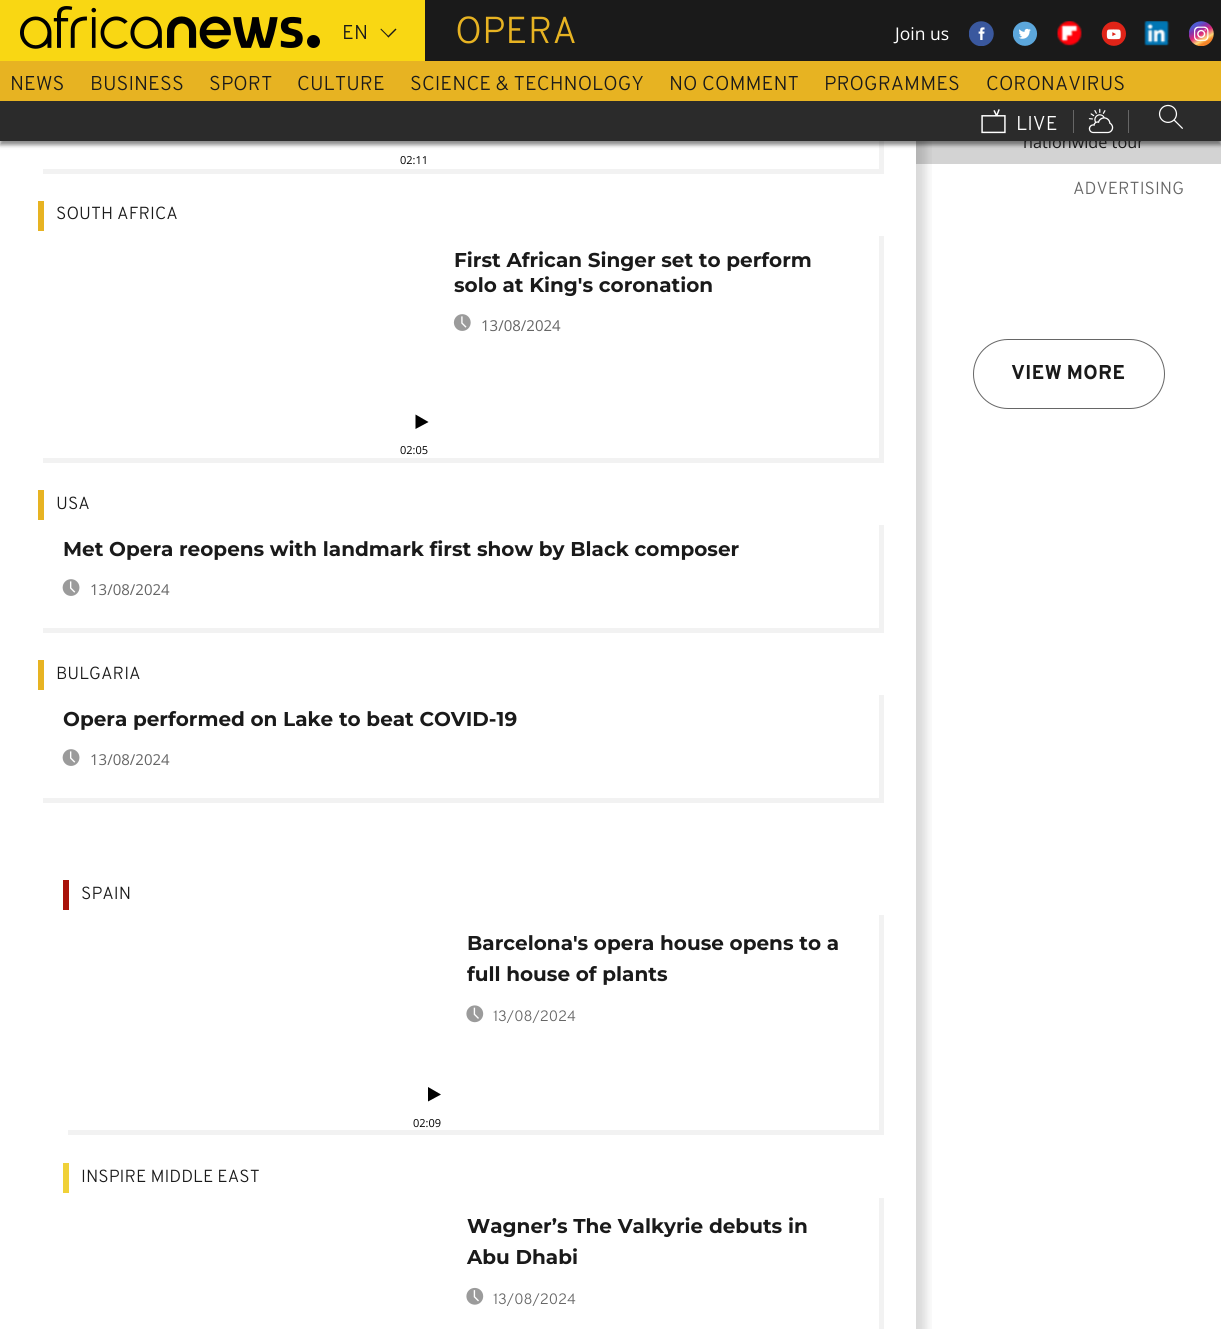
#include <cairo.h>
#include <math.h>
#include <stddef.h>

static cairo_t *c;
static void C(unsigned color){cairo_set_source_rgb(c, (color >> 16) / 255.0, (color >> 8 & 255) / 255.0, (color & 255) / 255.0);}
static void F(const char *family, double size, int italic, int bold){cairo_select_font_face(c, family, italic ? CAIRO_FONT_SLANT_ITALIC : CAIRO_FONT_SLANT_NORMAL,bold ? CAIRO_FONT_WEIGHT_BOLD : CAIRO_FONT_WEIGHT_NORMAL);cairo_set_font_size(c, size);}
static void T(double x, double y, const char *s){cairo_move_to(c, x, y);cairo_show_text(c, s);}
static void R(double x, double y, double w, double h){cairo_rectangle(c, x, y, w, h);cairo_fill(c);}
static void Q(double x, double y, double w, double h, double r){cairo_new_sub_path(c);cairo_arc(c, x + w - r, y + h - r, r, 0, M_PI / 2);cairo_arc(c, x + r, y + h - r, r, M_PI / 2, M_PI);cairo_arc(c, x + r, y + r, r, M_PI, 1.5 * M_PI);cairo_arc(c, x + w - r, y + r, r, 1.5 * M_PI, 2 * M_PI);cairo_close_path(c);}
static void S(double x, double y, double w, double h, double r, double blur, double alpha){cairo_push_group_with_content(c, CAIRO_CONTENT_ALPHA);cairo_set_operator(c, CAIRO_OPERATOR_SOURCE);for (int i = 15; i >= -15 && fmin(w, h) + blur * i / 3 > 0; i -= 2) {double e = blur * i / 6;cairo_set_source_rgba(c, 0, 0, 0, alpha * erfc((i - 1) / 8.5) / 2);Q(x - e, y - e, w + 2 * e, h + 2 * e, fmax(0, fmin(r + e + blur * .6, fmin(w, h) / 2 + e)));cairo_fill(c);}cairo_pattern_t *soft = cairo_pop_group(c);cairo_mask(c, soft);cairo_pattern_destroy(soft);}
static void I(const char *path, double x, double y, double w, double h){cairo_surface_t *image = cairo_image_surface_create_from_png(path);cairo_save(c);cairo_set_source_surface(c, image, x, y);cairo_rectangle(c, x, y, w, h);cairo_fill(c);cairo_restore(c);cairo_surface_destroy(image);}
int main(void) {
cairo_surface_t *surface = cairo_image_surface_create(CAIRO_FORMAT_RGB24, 1221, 1329);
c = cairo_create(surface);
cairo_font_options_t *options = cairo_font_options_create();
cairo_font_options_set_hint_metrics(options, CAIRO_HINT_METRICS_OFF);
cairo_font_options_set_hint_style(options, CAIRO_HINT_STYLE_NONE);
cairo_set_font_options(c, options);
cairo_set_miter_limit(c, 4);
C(0xffffff);
cairo_paint(c);
C(0xd3d3d3);
R(916,141,305,23);
cairo_save(c);
cairo_rectangle(c,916,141,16,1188);
cairo_clip(c);
C(0x000000);
S(35,-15,891,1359,0,5,.15);
cairo_restore(c);
C(0xf2f2f2);
cairo_new_path(c);
cairo_move_to(c,43,169);
cairo_line_to(c,43,174);
cairo_line_to(c,884,174);
cairo_line_to(c,884,-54);
cairo_line_to(c,879,-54);
cairo_line_to(c,879,169);
cairo_close_path(c);
cairo_fill(c);
C(0x1a1a1a);
R(425,0,796,61);
C(0x000000);
S(0,65,1221,80,0,2,.45);
C(0xf9d713);
R(0,0,425,61);
I("1.png",20,6,300,43);
F("Overpass Light",20,0,0);
C(0x1a1a1a);
T(342,39,"EN");
cairo_new_path(c);
cairo_move_to(c,387.5,36.5);
cairo_line_to(c,395.5,28.5);
cairo_line_to(c,396.5,29.5);
cairo_line_to(c,388.5,37.5);
cairo_close_path(c);
cairo_fill(c);
cairo_new_path(c);
cairo_move_to(c,380.5,29.5);
cairo_line_to(c,381,28.5);
cairo_line_to(c,389,36.5);
cairo_line_to(c,388.5,37.5);
cairo_close_path(c);
cairo_fill(c);
F("Overpass Light",37.5,0,0);
C(0xe7b322);
T(455,43,"OPERA");
F("Open Sans",17.5,0,0);
C(0xffffff);
T(895,40,"Join us");
I("2.png",969,21,25,25);
I("3.png",1013,21,25,25);
I("4.png",1057,21,25,25);
I("5.png",1101,21,25,25);
I("6.png",1144,21,26,25);
I("7.png",1189,21,25,25);
C(0xe7b322);
R(0,61,1221,40);
F("Overpass Light",20,0,0);
C(0x1a1a1a);
T(10,90,"NEWS");
T(90,90,"BUSINESS");
T(209,90,"SPORT");
T(297,90,"CULTURE");
T(410,90,"SCIENCE & TECHNOLOGY");
T(669,90,"NO COMMENT");
T(824,90,"PROGRAMMES");
T(986,90,"CORONAVIRUS");
F("Open Sans",16.25,0,0);
T(1023,148,"nationwide tour");
C(0x2b2b2b);
R(0,101,1221,40);
I("8.png",981,109,25,25);
F("Overpass Light",20,0,0);
C(0xffffff);
T(1016,130,"LIVE");
C(0x666666);
R(1073,110,1,23);
I("9.png",1088,108,26,26);
R(1128,110,1,23);
I("10.png",1158,104,25,25);
F("Open Sans",11,0,0);
C(0x000000);
T(400,164,"02:11");
C(0xf2f2f2);
cairo_new_path(c);
cairo_move_to(c,43,458);
cairo_line_to(c,43,463);
cairo_line_to(c,884,463);
cairo_line_to(c,884,236);
cairo_line_to(c,879,236);
cairo_line_to(c,879,458);
cairo_close_path(c);
cairo_fill(c);
C(0xe7b322);
R(38,201,6,30);
F("Overpass Light",17.5,0,0);
C(0x1a1a1a);
T(56,219,"SOUTH AFRICA");
F("Montserrat Thin",20,0,0);
T(454,267,"First African Singer set to perform");
T(454,292,"solo at King's coronation");
I("11.png",453,314,18,17);
F("Open Sans",15,0,0);
C(0x666666);
T(481,331,"13/08/2024");
C(0x000000);
cairo_new_path(c);
cairo_move_to(c,428.5,422);
cairo_line_to(c,415.5,429);
cairo_line_to(c,415.5,414.5);
cairo_close_path(c);
cairo_fill(c);
F("Open Sans",11,0,0);
T(400,454,"02:05");
C(0xf2f2f2);
cairo_new_path(c);
cairo_move_to(c,43,628);
cairo_line_to(c,43,633);
cairo_line_to(c,884,633);
cairo_line_to(c,884,525);
cairo_line_to(c,879,525);
cairo_line_to(c,879,628);
cairo_close_path(c);
cairo_fill(c);
C(0xe7b322);
R(38,490,6,30);
F("Overpass Light",17.5,0,0);
C(0x1a1a1a);
T(56,509,"USA");
F("Montserrat Thin",20,0,0);
T(63,556,"Met Opera reopens with landmark first show by Black composer");
I("12.png",62,579,18,17);
F("Open Sans",15,0,0);
C(0x666666);
T(90,595,"13/08/2024");
C(0xf2f2f2);
cairo_new_path(c);
cairo_move_to(c,43,798);
cairo_line_to(c,43,803);
cairo_line_to(c,884,803);
cairo_line_to(c,884,695);
cairo_line_to(c,879,695);
cairo_line_to(c,879,798);
cairo_close_path(c);
cairo_fill(c);
C(0xe7b322);
R(38,660,6,30);
F("Overpass Light",17.5,0,0);
C(0x1a1a1a);
T(56,679,"BULGARIA");
F("Montserrat Thin",20,0,0);
T(63,726,"Opera performed on Lake to beat COVID-19");
I("12.png",62,749,18,17);
F("Open Sans",15,0,0);
C(0x666666);
T(90,765,"13/08/2024");
C(0xf2f2f2);
cairo_new_path(c);
cairo_move_to(c,68,1130);
cairo_line_to(c,68,1135);
cairo_line_to(c,884,1135);
cairo_line_to(c,884,915);
cairo_line_to(c,879,915);
cairo_line_to(c,879,1130);
cairo_close_path(c);
cairo_fill(c);
C(0xa9120a);
R(63,880,6,30);
F("Overpass Light",17.5,0,0);
C(0x1a1a1a);
T(81,899,"SPAIN");
F("Montserrat Thin",20,0,0);
T(467,950,"Barcelona's opera house opens to a");
T(467,981,"full house of plants");
I("13.png",466,1005,18,18);
F("Overpass Light",15,0,0);
C(0x666666);
T(493,1021,"13/08/2024");
C(0x000000);
cairo_new_path(c);
cairo_move_to(c,441,1094.5);
cairo_line_to(c,428,1101.5);
cairo_line_to(c,428,1087);
cairo_close_path(c);
cairo_fill(c);
F("Open Sans",11,0,0);
T(413,1127,"02:09");
C(0xf2f2f2);
cairo_new_path(c);
cairo_move_to(c,68,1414);
cairo_line_to(c,68,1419);
cairo_line_to(c,884,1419);
cairo_line_to(c,884,1198);
cairo_line_to(c,879,1198);
cairo_line_to(c,879,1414);
cairo_close_path(c);
cairo_fill(c);
C(0xf0d138);
R(63,1163,6,30);
F("Overpass Light",17.5,0,0);
C(0x1a1a1a);
T(81,1182,"INSPIRE MIDDLE EAST");
F("Montserrat Thin",20,0,0);
T(467,1233,"Wagner’s The Valkyrie debuts in");
T(467,1264,"Abu Dhabi");
I("14.png",466,1287,18,18);
F("Overpass Light",15,0,0);
C(0x666666);
T(493,1304,"13/08/2024");
F("Overpass Light",17.5,0,0);
T(1073,194,"ADVERTISING");
Q(973.5,339.5,191,69,34.5);
cairo_set_line_width(c,1);
cairo_stroke(c);
F("Overpass",20,0,1);
C(0x1a1a1a);
T(1011,379,"VIEW MORE");
cairo_surface_write_to_png(surface, "o.png");
cairo_font_options_destroy(options);
cairo_destroy(c);
cairo_surface_destroy(surface);
return 0;
}
